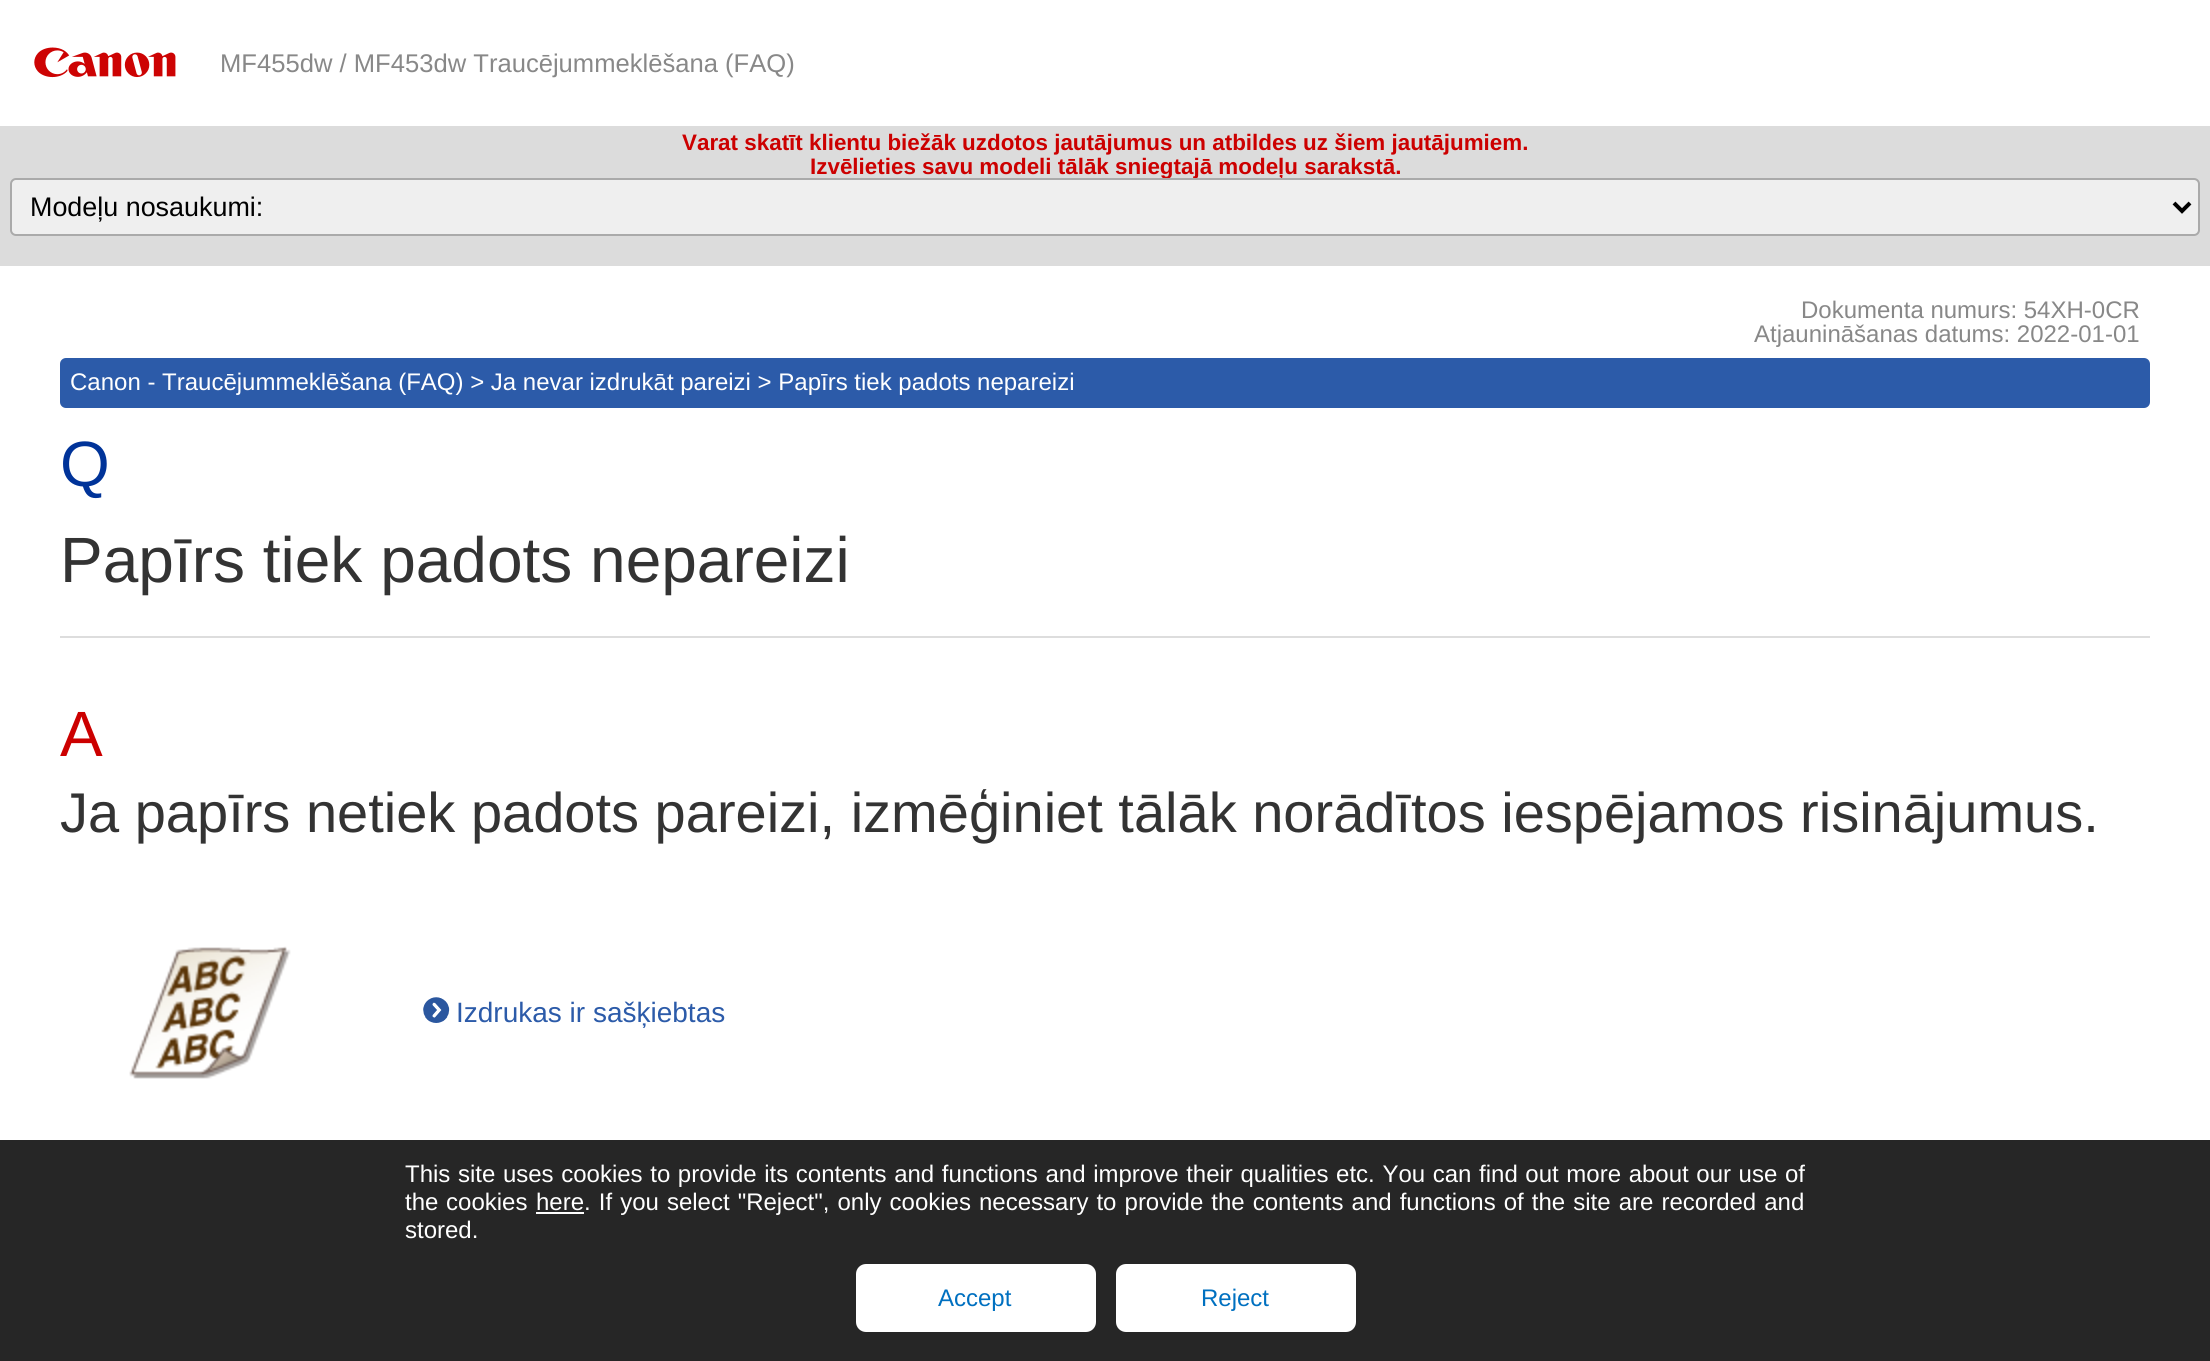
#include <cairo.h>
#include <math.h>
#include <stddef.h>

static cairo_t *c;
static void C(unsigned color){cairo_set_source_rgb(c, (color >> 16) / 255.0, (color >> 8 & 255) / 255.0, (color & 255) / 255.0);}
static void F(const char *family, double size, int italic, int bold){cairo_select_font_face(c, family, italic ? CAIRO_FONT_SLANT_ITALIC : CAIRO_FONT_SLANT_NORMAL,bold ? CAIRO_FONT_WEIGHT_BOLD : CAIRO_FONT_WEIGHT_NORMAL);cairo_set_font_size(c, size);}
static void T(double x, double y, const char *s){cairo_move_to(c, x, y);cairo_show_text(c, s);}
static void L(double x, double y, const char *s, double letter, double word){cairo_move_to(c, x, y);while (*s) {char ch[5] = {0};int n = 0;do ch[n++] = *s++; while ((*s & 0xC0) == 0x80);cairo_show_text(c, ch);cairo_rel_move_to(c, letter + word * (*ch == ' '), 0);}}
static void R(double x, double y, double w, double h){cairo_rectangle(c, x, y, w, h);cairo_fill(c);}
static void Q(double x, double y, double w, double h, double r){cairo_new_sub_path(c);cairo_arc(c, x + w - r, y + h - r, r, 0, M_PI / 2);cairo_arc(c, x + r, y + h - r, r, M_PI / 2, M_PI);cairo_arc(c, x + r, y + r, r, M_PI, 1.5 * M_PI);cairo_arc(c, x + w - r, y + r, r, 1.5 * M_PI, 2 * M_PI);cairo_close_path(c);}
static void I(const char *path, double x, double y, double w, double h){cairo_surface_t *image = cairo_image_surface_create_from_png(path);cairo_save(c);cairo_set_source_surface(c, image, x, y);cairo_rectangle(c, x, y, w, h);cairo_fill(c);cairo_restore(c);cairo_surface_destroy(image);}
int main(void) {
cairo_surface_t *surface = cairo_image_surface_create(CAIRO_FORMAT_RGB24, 2210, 1361);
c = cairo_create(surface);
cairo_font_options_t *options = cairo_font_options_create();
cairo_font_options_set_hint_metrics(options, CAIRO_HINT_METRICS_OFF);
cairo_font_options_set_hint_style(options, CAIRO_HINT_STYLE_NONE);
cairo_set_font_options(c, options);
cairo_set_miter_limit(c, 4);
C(0xffffff);
cairo_paint(c);
I("1.png",34,47,142,31);
F("Liberation Sans",25.6,0,0);
C(0x888888);
T(220,72,"MF455dw / MF453dw Traucējummeklēšana (FAQ)");
C(0xdcdcdc);
R(0,126,2210,140);
F("Liberation Sans",22.4,0,1);
C(0xcc0000);
T(682,150,"Varat skatīt klientu biežāk uzdotos jautājumus un atbildes uz šiem jautājumiem.");
T(810,174,"Izvēlieties savu modeli tālāk sniegtajā modeļu sarakstā.");
C(0xefefef);
Q(11,179,2188,56,5);
cairo_fill_preserve(c);
C(0xaaaaaa);
cairo_stroke(c);
cairo_new_path(c);
cairo_move_to(c,2174,203);
cairo_line_to(c,2182,211);
cairo_line_to(c,2190,203);
C(0x000000);
cairo_set_line_width(c,4);
cairo_stroke(c);
F("Liberation Sans",26.9,0,0);
T(30,216,"Modeļu nosaukumi:");
F("Liberation Sans",24,0,0);
C(0x888888);
T(1801,318,"Dokumenta numurs: 54XH-0CR");
T(1754,342,"Atjaunināšanas datums: 2022-01-01");
C(0x2c5ba9);
Q(60,358,2090,50,6);
cairo_fill(c);
C(0xffffff);
T(70,390,"Canon - Traucējummeklēšana (FAQ) > Ja nevar izdrukāt pareizi > Papīrs tiek padots nepareizi");
C(0xdddddd);
R(60,636,2090,2);
F("Liberation Sans",64,0,0);
C(0x003399);
T(60,486,"Q");
C(0x333333);
T(60,582,"Papīrs tiek padots nepareizi");
C(0xcc0000);
T(60,756,"A");
F("Liberation Sans",56,0,0);
C(0x333333);
T(60,832,"Ja papīrs netiek padots pareizi, izmēģiniet tālāk norādītos iespējamos risinājumus.");
I("2.png",129,946,162,133);
I("3.png",423,997,27,26);
F("Liberation Sans",28,0,0);
C(0x2c5ba9);
T(456,1022,"Izdrukas ir sašķiebtas");
C(0x262626);
R(0,1140,2210,221);
F("Liberation Sans",24,0,0);
C(0xffffff);
L(405,1182,"This site uses cookies to provide its contents and functions and improve their qualities etc. You can find out more about our use of",0,.95);
L(405,1210,"the cookies",0,1);
T(536,1210,"here");
R(536,1212,48,2);
L(584,1210,". If you select \"Reject\", only cookies necessary to provide the contents and functions of the site are recorded and",0,1.4);
T(405,1238,"stored.");
Q(856,1264,240,68,10);
cairo_fill(c);
C(0x0070c0);
T(938,1306,"Accept");
C(0xffffff);
Q(1116,1264,240,68,10);
cairo_fill(c);
C(0x0070c0);
T(1201,1306,"Reject");
cairo_surface_write_to_png(surface, "o.png");
cairo_font_options_destroy(options);
cairo_destroy(c);
cairo_surface_destroy(surface);
return 0;
}
